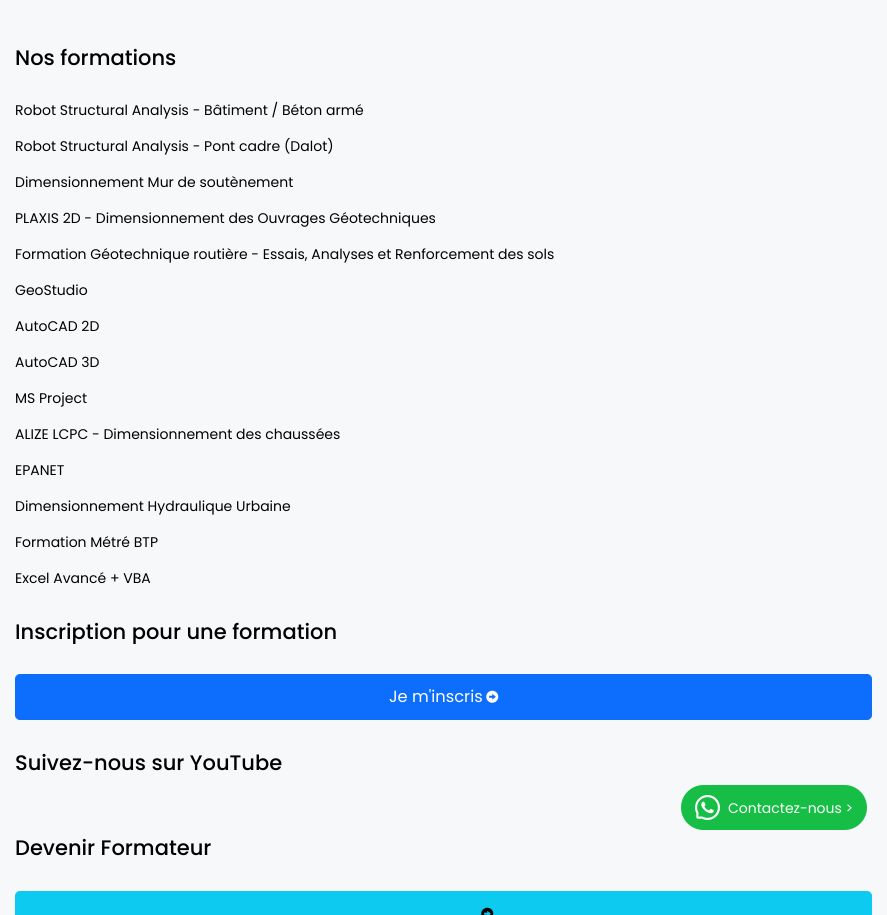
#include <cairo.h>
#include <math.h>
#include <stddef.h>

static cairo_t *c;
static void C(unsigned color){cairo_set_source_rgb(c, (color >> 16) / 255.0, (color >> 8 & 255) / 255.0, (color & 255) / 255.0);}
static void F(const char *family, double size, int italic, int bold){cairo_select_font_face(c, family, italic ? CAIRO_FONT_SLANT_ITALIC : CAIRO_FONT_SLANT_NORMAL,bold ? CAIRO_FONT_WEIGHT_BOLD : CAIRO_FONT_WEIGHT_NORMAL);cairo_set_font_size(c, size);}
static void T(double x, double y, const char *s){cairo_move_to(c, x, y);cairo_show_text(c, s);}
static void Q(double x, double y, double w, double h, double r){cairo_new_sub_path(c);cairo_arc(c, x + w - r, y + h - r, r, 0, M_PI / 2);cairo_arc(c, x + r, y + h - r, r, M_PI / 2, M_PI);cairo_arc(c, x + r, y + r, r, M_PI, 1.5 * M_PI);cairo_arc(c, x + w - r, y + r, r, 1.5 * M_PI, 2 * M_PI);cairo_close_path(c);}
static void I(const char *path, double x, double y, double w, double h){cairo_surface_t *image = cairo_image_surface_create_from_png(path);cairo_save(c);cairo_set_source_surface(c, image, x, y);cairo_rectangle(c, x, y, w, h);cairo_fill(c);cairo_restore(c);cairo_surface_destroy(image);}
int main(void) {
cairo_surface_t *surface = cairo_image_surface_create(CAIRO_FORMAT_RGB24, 887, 915);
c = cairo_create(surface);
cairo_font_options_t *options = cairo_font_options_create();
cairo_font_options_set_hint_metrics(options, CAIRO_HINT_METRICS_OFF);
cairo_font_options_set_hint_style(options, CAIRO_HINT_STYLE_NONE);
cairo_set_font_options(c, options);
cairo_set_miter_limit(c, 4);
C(0xf7f8f9);
cairo_paint(c);
F("Poppins Medium",21,0,0);
C(0x000000);
T(15,65,"Nos formations");
F("Poppins",14,0,0);
T(15,115,"Robot Structural Analysis - Bâtiment / Béton armé");
T(15,151,"Robot Structural Analysis - Pont cadre (Dalot)");
T(15,187,"Dimensionnement Mur de soutènement");
T(15,223,"PLAXIS 2D - Dimensionnement des Ouvrages Géotechniques");
T(15,259,"Formation Géotechnique routière - Essais, Analyses et Renforcement des sols");
T(15,295,"GeoStudio");
T(15,331,"AutoCAD 2D");
T(15,367,"AutoCAD 3D");
T(15,403,"MS Project");
T(15,439,"ALIZE LCPC - Dimensionnement des chaussées");
T(15,475,"EPANET");
T(15,511,"Dimensionnement Hydraulique Urbaine");
T(15,547,"Formation Métré BTP");
T(15,583,"Excel Avancé + VBA");
cairo_save(c);
cairo_rectangle(c,15,619,857,25);
cairo_clip(c);
F("Poppins Medium",21,0,0);
T(15,639,"Inscription pour une formation");
cairo_restore(c);
C(0x0d6efd);
Q(15.5,674.5,856,45,4.5);
cairo_fill_preserve(c);
cairo_set_line_width(c,1);
cairo_stroke(c);
F("Poppins",16.25,0,0);
C(0xffffff);
T(389,702,"Je m'inscris");
I("1.png",486,690,13,13);
F("Poppins Medium",21,0,0);
C(0x000000);
T(15,770,"Suivez-nous sur YouTube");
T(15,855,"Devenir Formateur");
C(0x0dcaf0);
Q(15.5,891.5,856,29,4.5);
cairo_fill_preserve(c);
cairo_stroke(c);
I("2.png",481,907,13,8);
C(0x16be45);
Q(681,785,186,45,22.5);
cairo_fill(c);
I("3.png",695,795,25,25);
F("Poppins",14,0,0);
C(0xffffff);
T(728,813,"Contactez-nous >");
cairo_surface_write_to_png(surface, "o.png");
cairo_font_options_destroy(options);
cairo_destroy(c);
cairo_surface_destroy(surface);
return 0;
}
